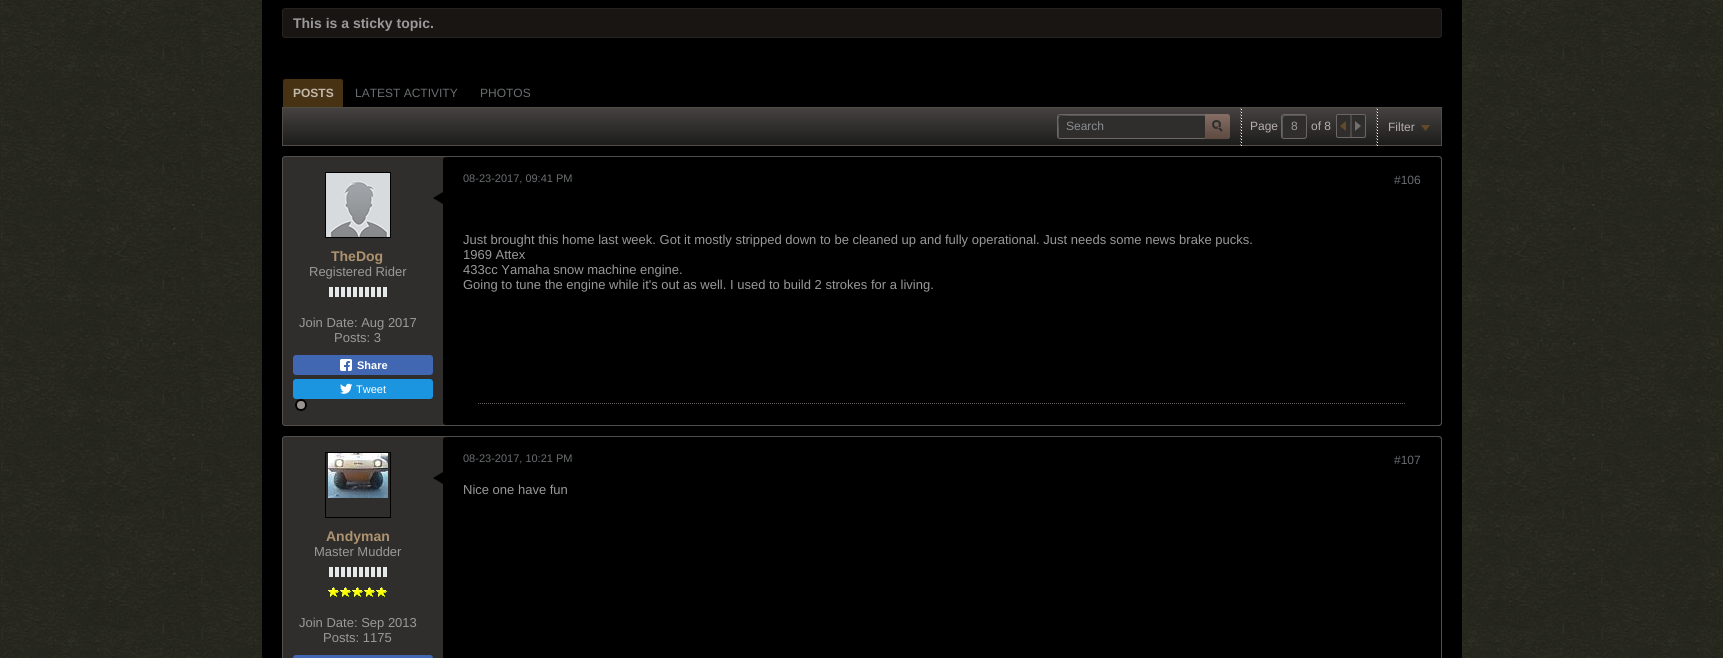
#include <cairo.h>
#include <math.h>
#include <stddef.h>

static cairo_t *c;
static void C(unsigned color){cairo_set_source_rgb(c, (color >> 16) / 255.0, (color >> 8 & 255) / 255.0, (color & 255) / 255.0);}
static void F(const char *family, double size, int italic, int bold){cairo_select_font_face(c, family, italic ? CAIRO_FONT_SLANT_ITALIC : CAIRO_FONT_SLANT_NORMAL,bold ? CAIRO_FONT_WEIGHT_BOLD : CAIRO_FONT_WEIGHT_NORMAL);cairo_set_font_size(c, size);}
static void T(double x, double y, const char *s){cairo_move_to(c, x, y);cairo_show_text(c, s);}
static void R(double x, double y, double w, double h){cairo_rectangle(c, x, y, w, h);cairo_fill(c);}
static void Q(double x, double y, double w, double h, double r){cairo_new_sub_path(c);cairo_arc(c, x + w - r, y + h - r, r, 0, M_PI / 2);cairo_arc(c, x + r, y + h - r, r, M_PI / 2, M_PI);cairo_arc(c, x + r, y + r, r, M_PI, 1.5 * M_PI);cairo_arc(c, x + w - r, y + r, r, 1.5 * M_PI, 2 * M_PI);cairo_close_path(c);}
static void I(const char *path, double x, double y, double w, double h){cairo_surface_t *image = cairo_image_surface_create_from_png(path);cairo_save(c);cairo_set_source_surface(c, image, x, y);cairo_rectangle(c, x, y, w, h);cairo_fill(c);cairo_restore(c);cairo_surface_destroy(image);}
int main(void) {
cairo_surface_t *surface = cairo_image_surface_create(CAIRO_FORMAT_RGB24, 1723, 658);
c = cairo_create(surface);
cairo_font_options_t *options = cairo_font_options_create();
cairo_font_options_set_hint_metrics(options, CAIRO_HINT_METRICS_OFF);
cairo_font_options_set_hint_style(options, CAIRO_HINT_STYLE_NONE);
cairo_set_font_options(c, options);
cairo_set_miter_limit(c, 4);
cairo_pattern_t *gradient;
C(0xffffff);
cairo_paint(c);
I("1.png",0,0,1723,658);
C(0x000000);
R(262,0,1200,658);
C(0x191513);
Q(282.5,8.5,1159,29,2.5);
cairo_fill_preserve(c);
C(0x28221f);
cairo_set_line_width(c,1);
cairo_stroke(c);
F("Liberation Sans",14,0,1);
C(0x9a9999);
T(293,28,"This is a sticky topic.");
C(0x483214);
cairo_new_path(c);
cairo_move_to(c,286,78);
cairo_line_to(c,340,78);
cairo_curve_to(c,342,78,344,80,344,82);
cairo_line_to(c,344,107);
cairo_line_to(c,282,107);
cairo_line_to(c,282,82);
cairo_curve_to(c,282,80,284,78,286,78);
cairo_close_path(c);
cairo_fill(c);
C(0x000000);
cairo_set_fill_rule(c,CAIRO_FILL_RULE_EVEN_ODD);
cairo_new_path(c);
cairo_move_to(c,286,78);
cairo_line_to(c,340,78);
cairo_curve_to(c,342,78,344,80,344,82);
cairo_line_to(c,344,107);
cairo_line_to(c,282,107);
cairo_line_to(c,282,82);
cairo_curve_to(c,282,80,284,78,286,78);
cairo_close_path(c);
cairo_move_to(c,286,79);
cairo_line_to(c,340,79);
cairo_curve_to(c,342,79,343,80,343,82);
cairo_line_to(c,343,107);
cairo_line_to(c,283,107);
cairo_line_to(c,283,82);
cairo_curve_to(c,283,80,284,79,286,79);
cairo_close_path(c);
cairo_fill(c);
F("Liberation Sans",12,0,1);
C(0xc1b8ab);
T(293,97,"POSTS");
F("Liberation Sans",12,0,0);
C(0x6a6d6f);
T(355,97,"LATEST ACTIVITY");
T(480,97,"PHOTOS");
gradient = cairo_pattern_create_linear(862,108,862,145);
cairo_pattern_add_color_stop_rgba(gradient,0,0.271,0.259,0.251,1);
cairo_pattern_add_color_stop_rgba(gradient,1,0.11,0.11,0.106,1);
cairo_set_source(c,gradient);
cairo_pattern_destroy(gradient);
R(283,108,1158,37);
cairo_rectangle(c,282.5,107.5,1159,38);
C(0x514c48);
cairo_stroke(c);
C(0x302e2d);
Q(1057,114,173,25,3);
cairo_fill(c);
C(0x595857);
cairo_set_fill_rule(c,CAIRO_FILL_RULE_WINDING);
cairo_new_path(c);
cairo_move_to(c,1061,116);
cairo_line_to(c,1229,116);
cairo_line_to(c,1227,115);
cairo_line_to(c,1144,115);
cairo_curve_to(c,1136,115,1060,114,1059,116);
cairo_line_to(c,1058,116);
cairo_line_to(c,1058,137);
cairo_line_to(c,1059,138);
cairo_line_to(c,1059,128);
cairo_curve_to(c,1059,126,1057,116,1061,116);
cairo_close_path(c);
cairo_fill(c);
Q(1057.5,114.5,172,24,2.5);
C(0x6c6764);
cairo_stroke(c);
C(0x898d91);
T(1066,130,"Search");
gradient = cairo_pattern_create_linear(1218,114,1218,139);
cairo_pattern_add_color_stop_rgba(gradient,0,0.525,0.431,0.396,1);
cairo_pattern_add_color_stop_rgba(gradient,1,0.365,0.29,0.255,1);
cairo_set_source(c,gradient);
cairo_pattern_destroy(gradient);
cairo_new_path(c);
cairo_move_to(c,1205,114);
cairo_line_to(c,1227,114);
cairo_curve_to(c,1228.5,114,1230,115.5,1230,117);
cairo_line_to(c,1230,136);
cairo_curve_to(c,1230,137.5,1228.5,139,1227,139);
cairo_line_to(c,1205,139);
cairo_close_path(c);
cairo_fill(c);
I("2.png",1212,120,11,12);
I("3.png",1240,108,1,37);
I("4.png",1241,109,1,37);
C(0xb6afad);
T(1250,130,"Page");
C(0x302e2d);
Q(1281,114,26,25,3);
cairo_fill(c);
C(0x595857);
cairo_new_path(c);
cairo_move_to(c,1285,116);
cairo_line_to(c,1305,116);
cairo_line_to(c,1306,116);
cairo_curve_to(c,1305.5,115.5,1305,115,1304,115);
cairo_line_to(c,1284,115);
cairo_curve_to(c,1283,115,1282,116,1282,117);
cairo_line_to(c,1282,136);
cairo_curve_to(c,1282,137,1282.5,137.5,1283,138);
cairo_line_to(c,1283,121);
cairo_curve_to(c,1283,120,1282.5,116,1285,116);
cairo_close_path(c);
cairo_fill(c);
Q(1281.5,114.5,25,24,2.5);
C(0x6c6764);
cairo_stroke(c);
C(0x9a9999);
T(1291,130,"8");
C(0xb6afad);
T(1311,130,"of 8");
C(0x302e2d);
Q(1336.5,114.5,29,23,1.5);
cairo_fill_preserve(c);
C(0x6c6764);
cairo_stroke(c);
C(0x4d4946);
R(1350,115,2,22);
I("5.png",1340,121,6,10);
I("6.png",1355,121,6,10);
I("3.png",1376,108,1,37);
I("4.png",1377,109,1,37);
C(0xb6afad);
T(1388,131,"Filter");
I("7.png",1421,125,9,6);
C(0x302e2d);
Q(282.5,156.5,1159,269,2.5);
cairo_fill_preserve(c);
C(0x524e4c);
cairo_stroke(c);
C(0x000000);
Q(443,157,998,268,3);
cairo_fill(c);
cairo_new_path(c);
cairo_move_to(c,443,192);
cairo_line_to(c,443,204);
cairo_line_to(c,433,198);
cairo_close_path(c);
cairo_fill(c);
F("Liberation Sans",11,0,0);
C(0x6a6d6f);
T(463,182,"08-23-2017, 09:41 PM");
F("Liberation Sans",12,0,0);
T(1394,184,"#106");
F("Liberation Sans",13,0,0);
C(0x9a9999);
T(463,244,"Just brought this home last week. Got it mostly stripped down to be cleaned up and fully operational. Just needs some news brake pucks.");
T(463,259,"1969 Attex");
T(463,274,"433cc Yamaha snow machine engine.");
T(463,289,"Going to tune the engine while it's out as well. I used to build 2 strokes for a living.");
cairo_new_path(c);
cairo_move_to(c,478,403.5);
cairo_line_to(c,1406,403.5);
C(0x635e5c);
cairo_set_dash(c,(double[]){1,1},2,0);
cairo_stroke(c);
cairo_rectangle(c,325.5,172.5,65,65);
C(0x000000);
cairo_set_dash(c,NULL,0,0);
cairo_stroke(c);
I("8.png",326,173,64,64);
F("Liberation Sans",14,0,1);
C(0xad936e);
T(331,261,"TheDog");
F("Liberation Sans",13,0,0);
C(0x9a9999);
T(309,276,"Registered Rider");
C(0xe5e8e9);
R(329,287,4,10);
R(335,287,4,10);
R(341,287,4,10);
R(347,287,4,10);
R(353,287,4,10);
R(359,287,4,10);
R(365,287,4,10);
R(371,287,4,10);
R(377,287,4,10);
R(383,287,4,10);
C(0x9a9999);
T(299,327,"Join Date: Aug 2017");
T(334,342,"Posts: 3");
I("9.png",295,399,12,12);
C(0x4267b2);
Q(293,355,140,20,3);
cairo_fill(c);
I("10.png",340,359,12,12);
F("Liberation Sans",11,0,1);
C(0xffffff);
T(357,369,"Share");
C(0x1b95e0);
Q(293,379,140,20,3);
cairo_fill(c);
I("11.png",340,383,13,11);
F("Liberation Sans",11,0,0);
C(0xffffff);
T(356,393,"Tweet");
C(0x302e2d);
Q(282.5,436.5,1159,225,2.5);
cairo_fill_preserve(c);
C(0x524e4c);
cairo_stroke(c);
C(0x000000);
Q(443,437,998,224,3);
cairo_fill(c);
cairo_new_path(c);
cairo_move_to(c,443,472);
cairo_line_to(c,443,484);
cairo_line_to(c,433,478);
cairo_close_path(c);
cairo_fill(c);
C(0x6a6d6f);
T(463,462,"08-23-2017, 10:21 PM");
F("Liberation Sans",12,0,0);
T(1394,464,"#107");
F("Liberation Sans",13,0,0);
C(0x9a9999);
T(463,494,"Nice one have fun");
cairo_rectangle(c,325.5,452.5,65,65);
C(0x000000);
cairo_stroke(c);
I("12.png",328,453,60,45);
F("Liberation Sans",14,0,1);
C(0xad936e);
T(326,541,"Andyman");
F("Liberation Sans",13,0,0);
C(0x9a9999);
T(314,556,"Master Mudder");
C(0xe5e8e9);
R(329,567,4,10);
R(335,567,4,10);
R(341,567,4,10);
R(347,567,4,10);
R(353,567,4,10);
R(359,567,4,10);
R(365,567,4,10);
R(371,567,4,10);
R(377,567,4,10);
R(383,567,4,10);
I("13.png",328,587,11,10);
I("13.png",340,587,11,10);
I("13.png",352,587,11,10);
I("13.png",364,587,11,10);
I("13.png",376,587,11,10);
C(0x9a9999);
T(299,627,"Join Date: Sep 2013");
T(323,642,"Posts: 1175");
C(0x4267b2);
Q(293,655,140,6,3);
cairo_fill(c);
cairo_surface_write_to_png(surface, "o.png");
cairo_font_options_destroy(options);
cairo_destroy(c);
cairo_surface_destroy(surface);
return 0;
}
